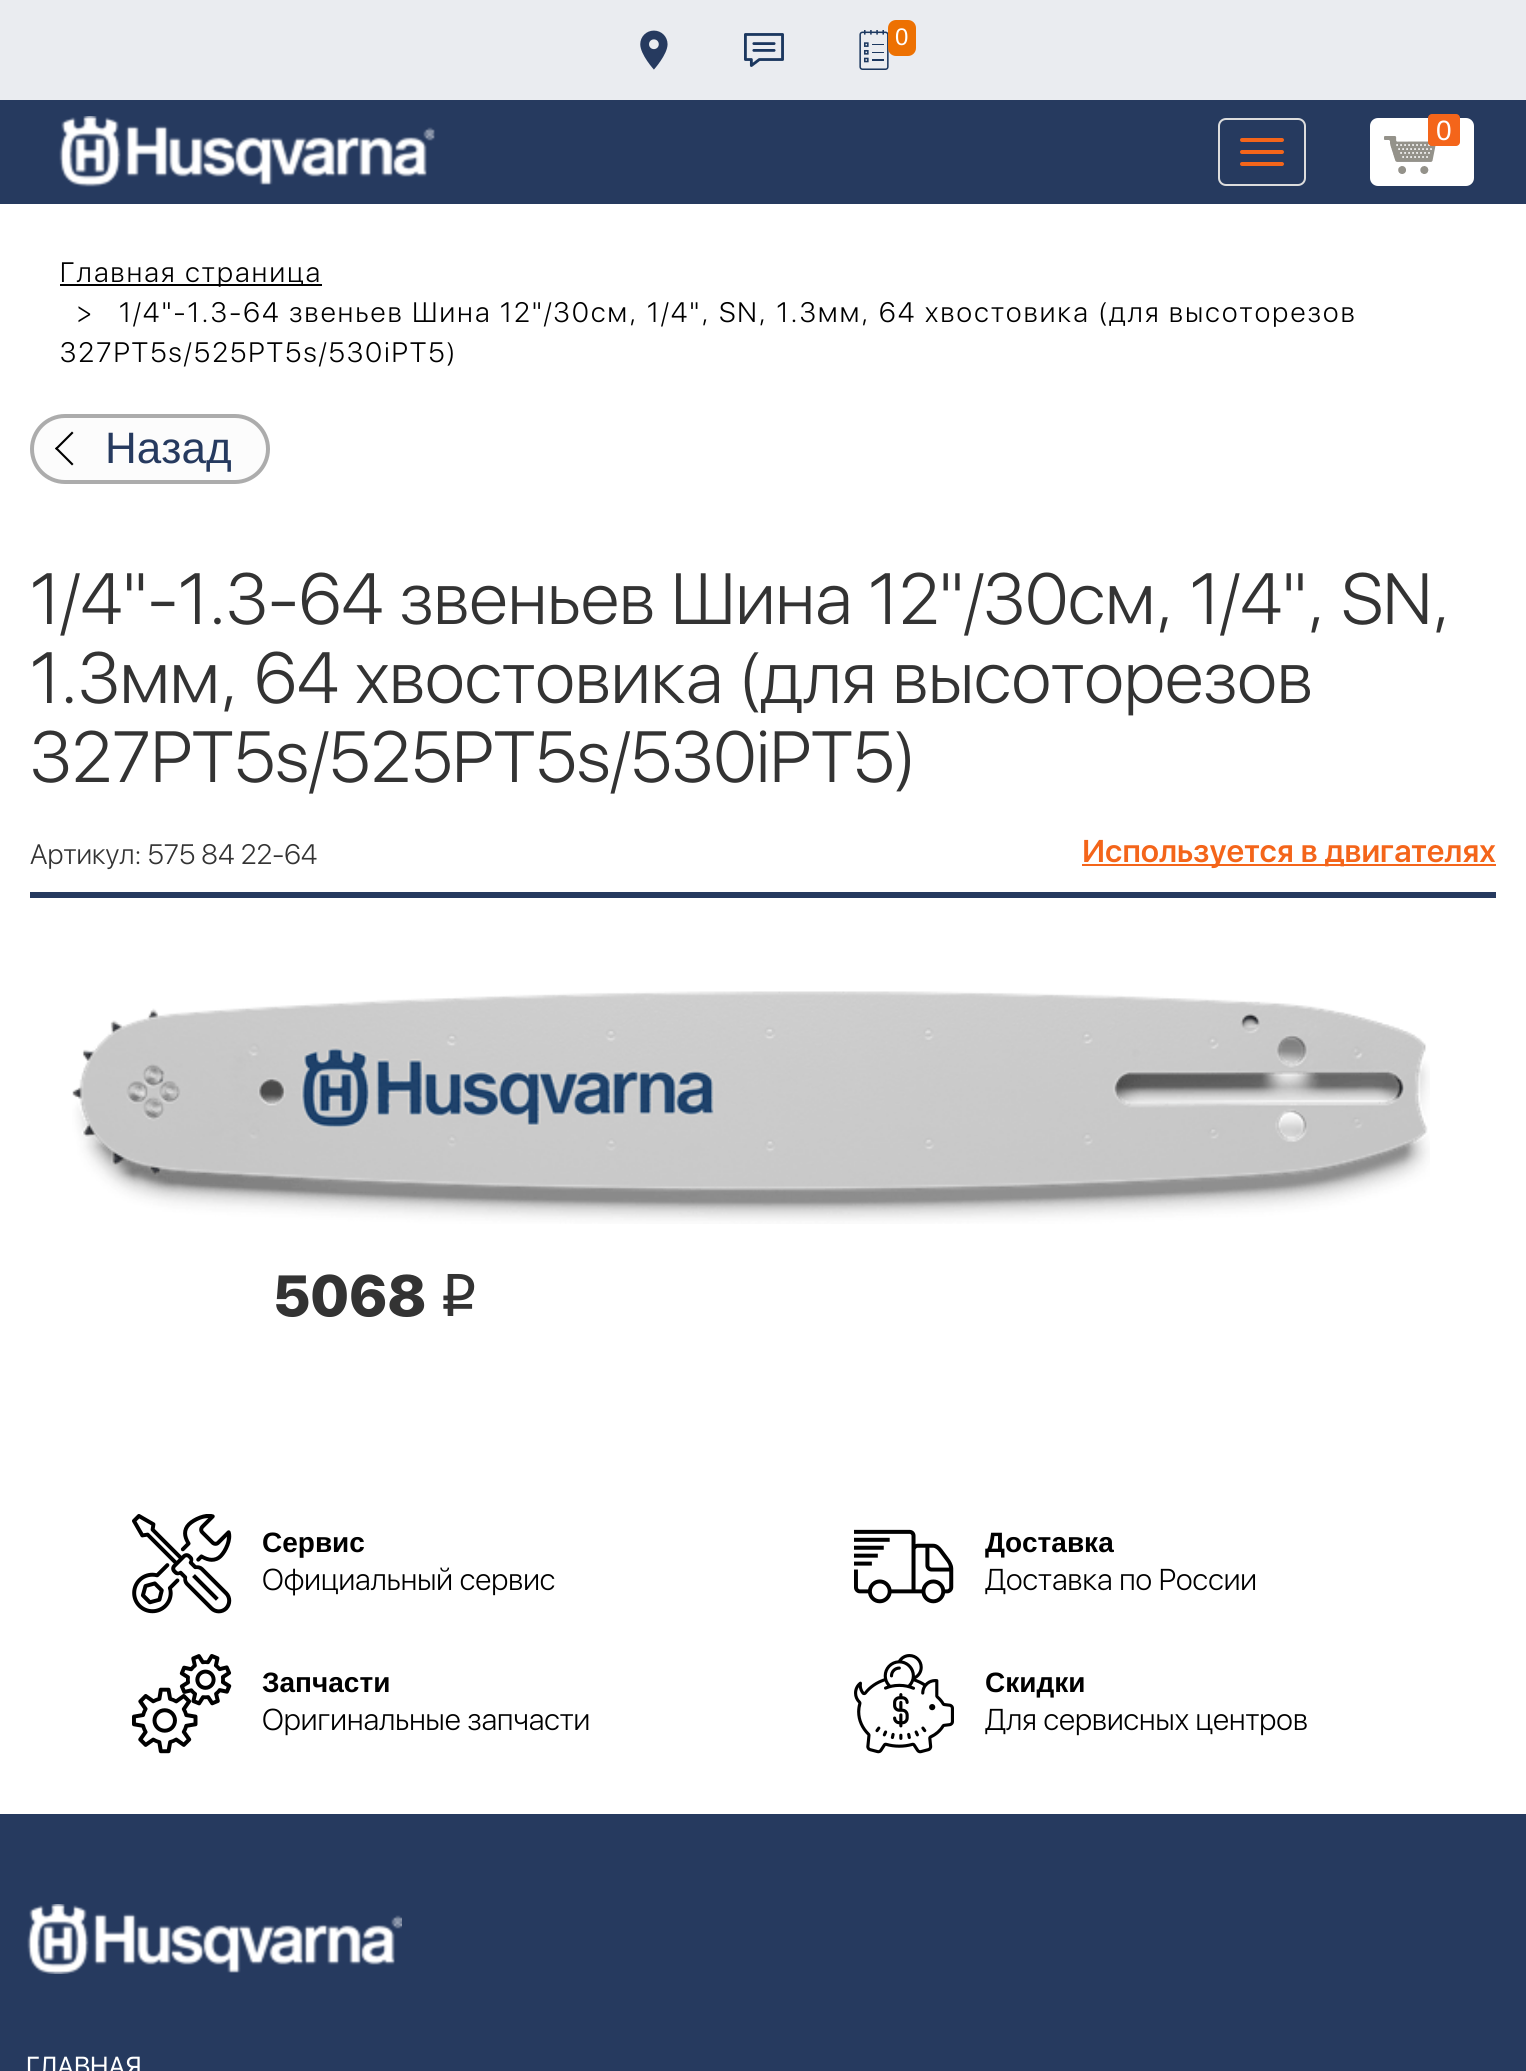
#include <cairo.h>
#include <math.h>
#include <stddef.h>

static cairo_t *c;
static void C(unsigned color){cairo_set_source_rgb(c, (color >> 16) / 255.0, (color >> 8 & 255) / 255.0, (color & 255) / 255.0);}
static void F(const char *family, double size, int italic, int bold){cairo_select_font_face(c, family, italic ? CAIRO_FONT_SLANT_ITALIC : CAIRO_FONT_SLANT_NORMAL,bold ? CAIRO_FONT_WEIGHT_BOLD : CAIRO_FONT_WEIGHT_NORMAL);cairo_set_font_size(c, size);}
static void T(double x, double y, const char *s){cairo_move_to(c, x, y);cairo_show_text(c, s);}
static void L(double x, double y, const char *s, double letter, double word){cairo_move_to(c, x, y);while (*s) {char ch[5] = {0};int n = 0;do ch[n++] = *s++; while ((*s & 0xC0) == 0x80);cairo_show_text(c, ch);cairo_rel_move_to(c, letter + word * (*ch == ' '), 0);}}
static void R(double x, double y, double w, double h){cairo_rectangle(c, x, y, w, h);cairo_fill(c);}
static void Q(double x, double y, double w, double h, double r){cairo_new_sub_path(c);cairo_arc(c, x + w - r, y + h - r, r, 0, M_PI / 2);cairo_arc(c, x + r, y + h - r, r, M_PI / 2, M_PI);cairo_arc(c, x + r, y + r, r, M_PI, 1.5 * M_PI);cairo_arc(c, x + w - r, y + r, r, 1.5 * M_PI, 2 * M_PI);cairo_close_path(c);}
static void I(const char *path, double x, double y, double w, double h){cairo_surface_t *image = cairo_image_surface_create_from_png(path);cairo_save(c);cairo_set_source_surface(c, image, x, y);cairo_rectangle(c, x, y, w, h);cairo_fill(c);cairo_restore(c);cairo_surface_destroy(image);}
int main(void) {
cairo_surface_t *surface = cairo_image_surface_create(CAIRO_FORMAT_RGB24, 1526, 2071);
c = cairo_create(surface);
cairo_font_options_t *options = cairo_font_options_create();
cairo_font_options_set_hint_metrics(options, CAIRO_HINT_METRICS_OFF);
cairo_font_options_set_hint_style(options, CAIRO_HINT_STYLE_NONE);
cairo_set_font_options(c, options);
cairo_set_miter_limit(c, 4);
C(0xffffff);
cairo_paint(c);
C(0xeaecf0);
R(0,0,1526,100);
I("1.png",640,30,28,40);
I("2.png",744,33,40,34);
I("3.png",859,30,30,40);
C(0xed7102);
Q(888,20,28,36,8);
cairo_fill(c);
F("Liberation Sans",24,0,0);
C(0xffffff);
T(895,45,"0");
C(0x263a5f);
R(0,100,1526,104);
I("4.png",59,116,376,71);
Q(1219,119,86,66,7);
C(0xdddddd);
cairo_stroke(c);
C(0xf4651a);
Q(1240,138,44,4,2);
cairo_fill(c);
Q(1240,150,44,4,2);
cairo_fill(c);
Q(1240,162,44,4,2);
cairo_fill(c);
C(0xffffff);
Q(1370,118,104,68,8);
cairo_fill(c);
I("5.png",1384,136,52,38);
C(0xf4651a);
Q(1428,114,32,32,4);
cairo_fill(c);
F("Liberation Sans",28,0,0);
C(0xffffff);
T(1436,140,"0");
C(0x000000);
R(60,284,262,2);
F("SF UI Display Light",28,0,0);
L(60,282,"Главная страница",2.2,0);
L(76,322,">",2.2,0);
L(119,322,"1/4\"-1.3-64 звеньев Шина 12\"/30см, 1/4\", SN, 1.3мм, 64 хвостовика (для высоторезов",2.2,0);
L(60,362,"327PT5s/525PT5s/530iPT5)",2.2,0);
C(0xfcfcfc);
Q(32,416,236,66,33);
cairo_fill_preserve(c);
C(0xacacac);
cairo_set_line_width(c,4);
cairo_stroke(c);
C(0x000000);
cairo_new_path(c);
cairo_move_to(c,55,448.5);
cairo_line_to(c,72,431.5);
cairo_line_to(c,73.5,433);
cairo_line_to(c,56.5,450);
cairo_close_path(c);
cairo_fill(c);
cairo_new_path(c);
cairo_move_to(c,55,448.5);
cairo_line_to(c,56.5,447);
cairo_line_to(c,73.5,464);
cairo_line_to(c,72,465.5);
cairo_close_path(c);
cairo_fill(c);
F("Liberation Sans",44,0,0);
C(0x263a5f);
T(105,463,"Назад");
F("SF UI Display Light",72,0,0);
C(0x333333);
T(30,624,"1/4\"-1.3-64 звеньев Шина 12\"/30см, 1/4\", SN,");
T(30,703,"1.3мм, 64 хвостовика (для высоторезов");
T(30,782,"327PT5s/525PT5s/530iPT5)");
F("SF UI Display Light",28,0,0);
T(30,864,"Артикул: 575 84 22-64");
C(0xf4651a);
R(1082,864,414,2);
F("SF UI Display SemiBold",32,0,0);
T(1082,862,"Используется в двигателях");
C(0x263a5f);
R(30,892,1466,6);
I("6.png",72,991,1358,233);
F("SF UI Display Black",60,0,0);
C(0x333333);
T(273,1316,"5068");
F("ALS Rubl",60,0,0);
T(438,1316,"i");
I("7.png",132,1514,100,100);
F("Liberation Sans",28,0,1);
C(0x000000);
T(262,1552,"Сервис");
F("SF UI Display Light",30,0,0);
T(262,1590,"Официальный сервис");
I("8.png",854,1529,100,75);
F("Liberation Sans",28,0,1);
T(985,1552,"Доставка");
F("SF UI Display Light",30,0,0);
T(985,1590,"Доставка по России");
I("9.png",132,1654,100,100);
F("Liberation Sans",28,0,1);
T(262,1692,"Запчасти");
F("SF UI Display Light",30,0,0);
T(262,1730,"Оригинальные запчасти");
I("10.png",854,1654,100,100);
F("Liberation Sans",28,0,1);
T(985,1692,"Скидки");
F("SF UI Display Light",30,0,0);
T(985,1730,"Для сервисных центров");
C(0x263a5f);
R(0,1814,1526,257);
I("11.png",27,1904,375,70);
F("SF UI Display",26,0,0);
C(0xffffff);
T(26,2075,"ГЛАВНАЯ");
cairo_surface_write_to_png(surface, "o.png");
cairo_font_options_destroy(options);
cairo_destroy(c);
cairo_surface_destroy(surface);
return 0;
}
